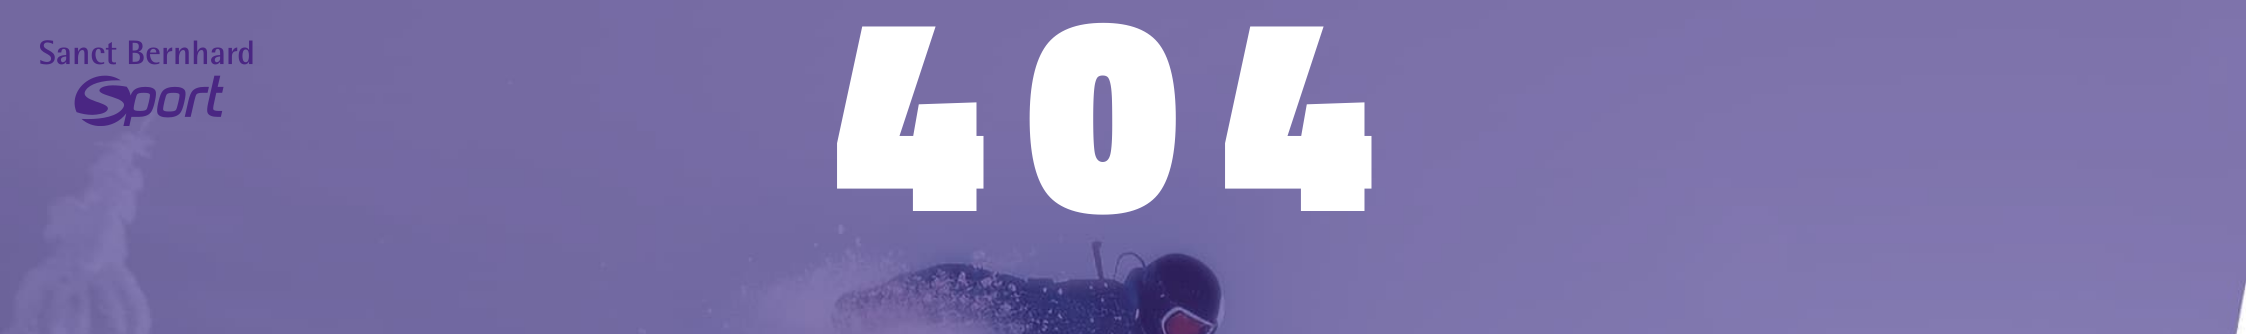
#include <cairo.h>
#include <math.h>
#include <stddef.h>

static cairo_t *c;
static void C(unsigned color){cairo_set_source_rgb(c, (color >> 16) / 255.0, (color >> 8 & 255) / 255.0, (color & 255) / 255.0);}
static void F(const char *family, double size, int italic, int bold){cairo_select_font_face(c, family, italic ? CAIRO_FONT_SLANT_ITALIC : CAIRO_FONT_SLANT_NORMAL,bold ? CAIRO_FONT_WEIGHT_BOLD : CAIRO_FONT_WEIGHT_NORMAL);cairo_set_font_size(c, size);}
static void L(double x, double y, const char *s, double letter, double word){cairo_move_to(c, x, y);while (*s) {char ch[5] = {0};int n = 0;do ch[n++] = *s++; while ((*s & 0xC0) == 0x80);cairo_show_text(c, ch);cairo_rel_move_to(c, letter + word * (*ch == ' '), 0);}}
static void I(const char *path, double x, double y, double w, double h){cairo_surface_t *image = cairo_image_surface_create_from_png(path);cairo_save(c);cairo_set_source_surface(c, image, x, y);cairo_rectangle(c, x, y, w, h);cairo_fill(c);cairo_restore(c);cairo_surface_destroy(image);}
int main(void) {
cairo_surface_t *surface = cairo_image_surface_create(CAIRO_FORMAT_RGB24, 2246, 334);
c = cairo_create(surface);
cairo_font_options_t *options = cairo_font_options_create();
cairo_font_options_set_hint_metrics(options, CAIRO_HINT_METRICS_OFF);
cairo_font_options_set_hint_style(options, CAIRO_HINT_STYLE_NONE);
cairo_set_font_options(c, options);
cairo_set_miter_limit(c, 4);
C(0xffffff);
cairo_paint(c);
I("1.png",0,0,2246,334);
I("2.png",40,40,213,86);
F("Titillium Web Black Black",280,0,0);
C(0xffffff);
L(832,211,"404",40,0);
cairo_surface_write_to_png(surface, "o.png");
cairo_font_options_destroy(options);
cairo_destroy(c);
cairo_surface_destroy(surface);
return 0;
}
